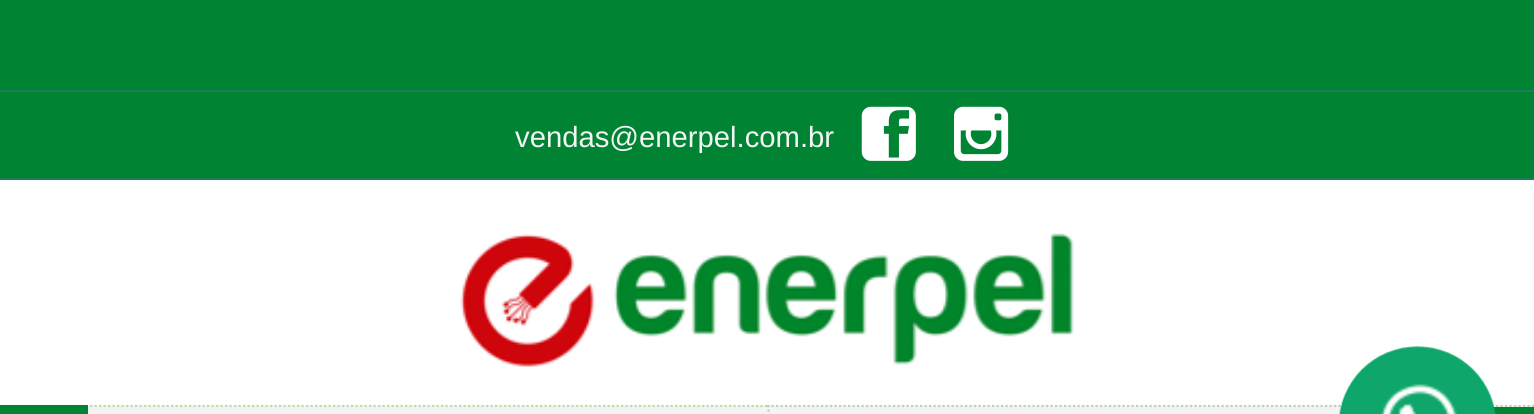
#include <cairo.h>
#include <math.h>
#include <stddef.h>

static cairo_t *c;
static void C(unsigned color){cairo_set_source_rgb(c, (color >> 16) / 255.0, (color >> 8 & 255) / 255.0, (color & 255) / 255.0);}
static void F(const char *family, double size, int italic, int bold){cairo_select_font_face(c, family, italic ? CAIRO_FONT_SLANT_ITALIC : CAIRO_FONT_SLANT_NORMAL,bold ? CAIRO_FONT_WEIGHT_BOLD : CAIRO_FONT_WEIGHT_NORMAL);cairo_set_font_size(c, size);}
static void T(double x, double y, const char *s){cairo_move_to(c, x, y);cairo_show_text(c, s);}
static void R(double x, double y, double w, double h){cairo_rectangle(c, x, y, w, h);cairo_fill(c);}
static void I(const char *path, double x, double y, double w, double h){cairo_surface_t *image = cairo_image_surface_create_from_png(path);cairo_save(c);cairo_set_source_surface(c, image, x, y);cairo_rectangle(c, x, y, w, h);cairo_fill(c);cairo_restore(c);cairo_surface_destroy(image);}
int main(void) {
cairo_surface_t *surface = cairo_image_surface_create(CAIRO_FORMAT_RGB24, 1534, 414);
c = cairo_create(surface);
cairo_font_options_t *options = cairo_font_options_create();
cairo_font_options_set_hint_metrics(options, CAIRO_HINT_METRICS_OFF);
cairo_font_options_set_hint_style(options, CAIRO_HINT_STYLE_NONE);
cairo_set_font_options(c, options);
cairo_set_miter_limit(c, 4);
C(0xf4f4f4);
cairo_paint(c);
C(0x008332);
R(0,0,1534,90);
R(0,92,1534,86);
C(0x1c7d5a);
R(0,90,1534,2);
R(0,178,1534,2);
F("Liberation Sans",29.25,0,0);
C(0xf4f4f4);
T(515,147,"vendas@enerpel.com.br");
I("1.png",861,106,55,55);
I("2.png",954,106,55,55);
C(0xffffff);
R(0,180,1534,225);
I("3.png",460,233,614,134);
cairo_new_path(c);
cairo_move_to(c,0,406);
cairo_line_to(c,767,406);
C(0xc0dca7);
cairo_set_line_width(c,2.2);
cairo_set_dash(c,(double[]){2.25,2.25},2,0);
cairo_stroke(c);
C(0x008332);
R(0,405,88,9);
cairo_new_path(c);
cairo_move_to(c,767,406);
cairo_line_to(c,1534.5,406);
C(0xc2d3b4);
cairo_stroke(c);
cairo_new_path(c);
cairo_move_to(c,768.5,405);
cairo_line_to(c,768.5,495);
cairo_stroke(c);
C(0x008332);
R(1493,407,41,7);
I("4.png",1339,346,157,68);
cairo_surface_write_to_png(surface, "o.png");
cairo_font_options_destroy(options);
cairo_destroy(c);
cairo_surface_destroy(surface);
return 0;
}
